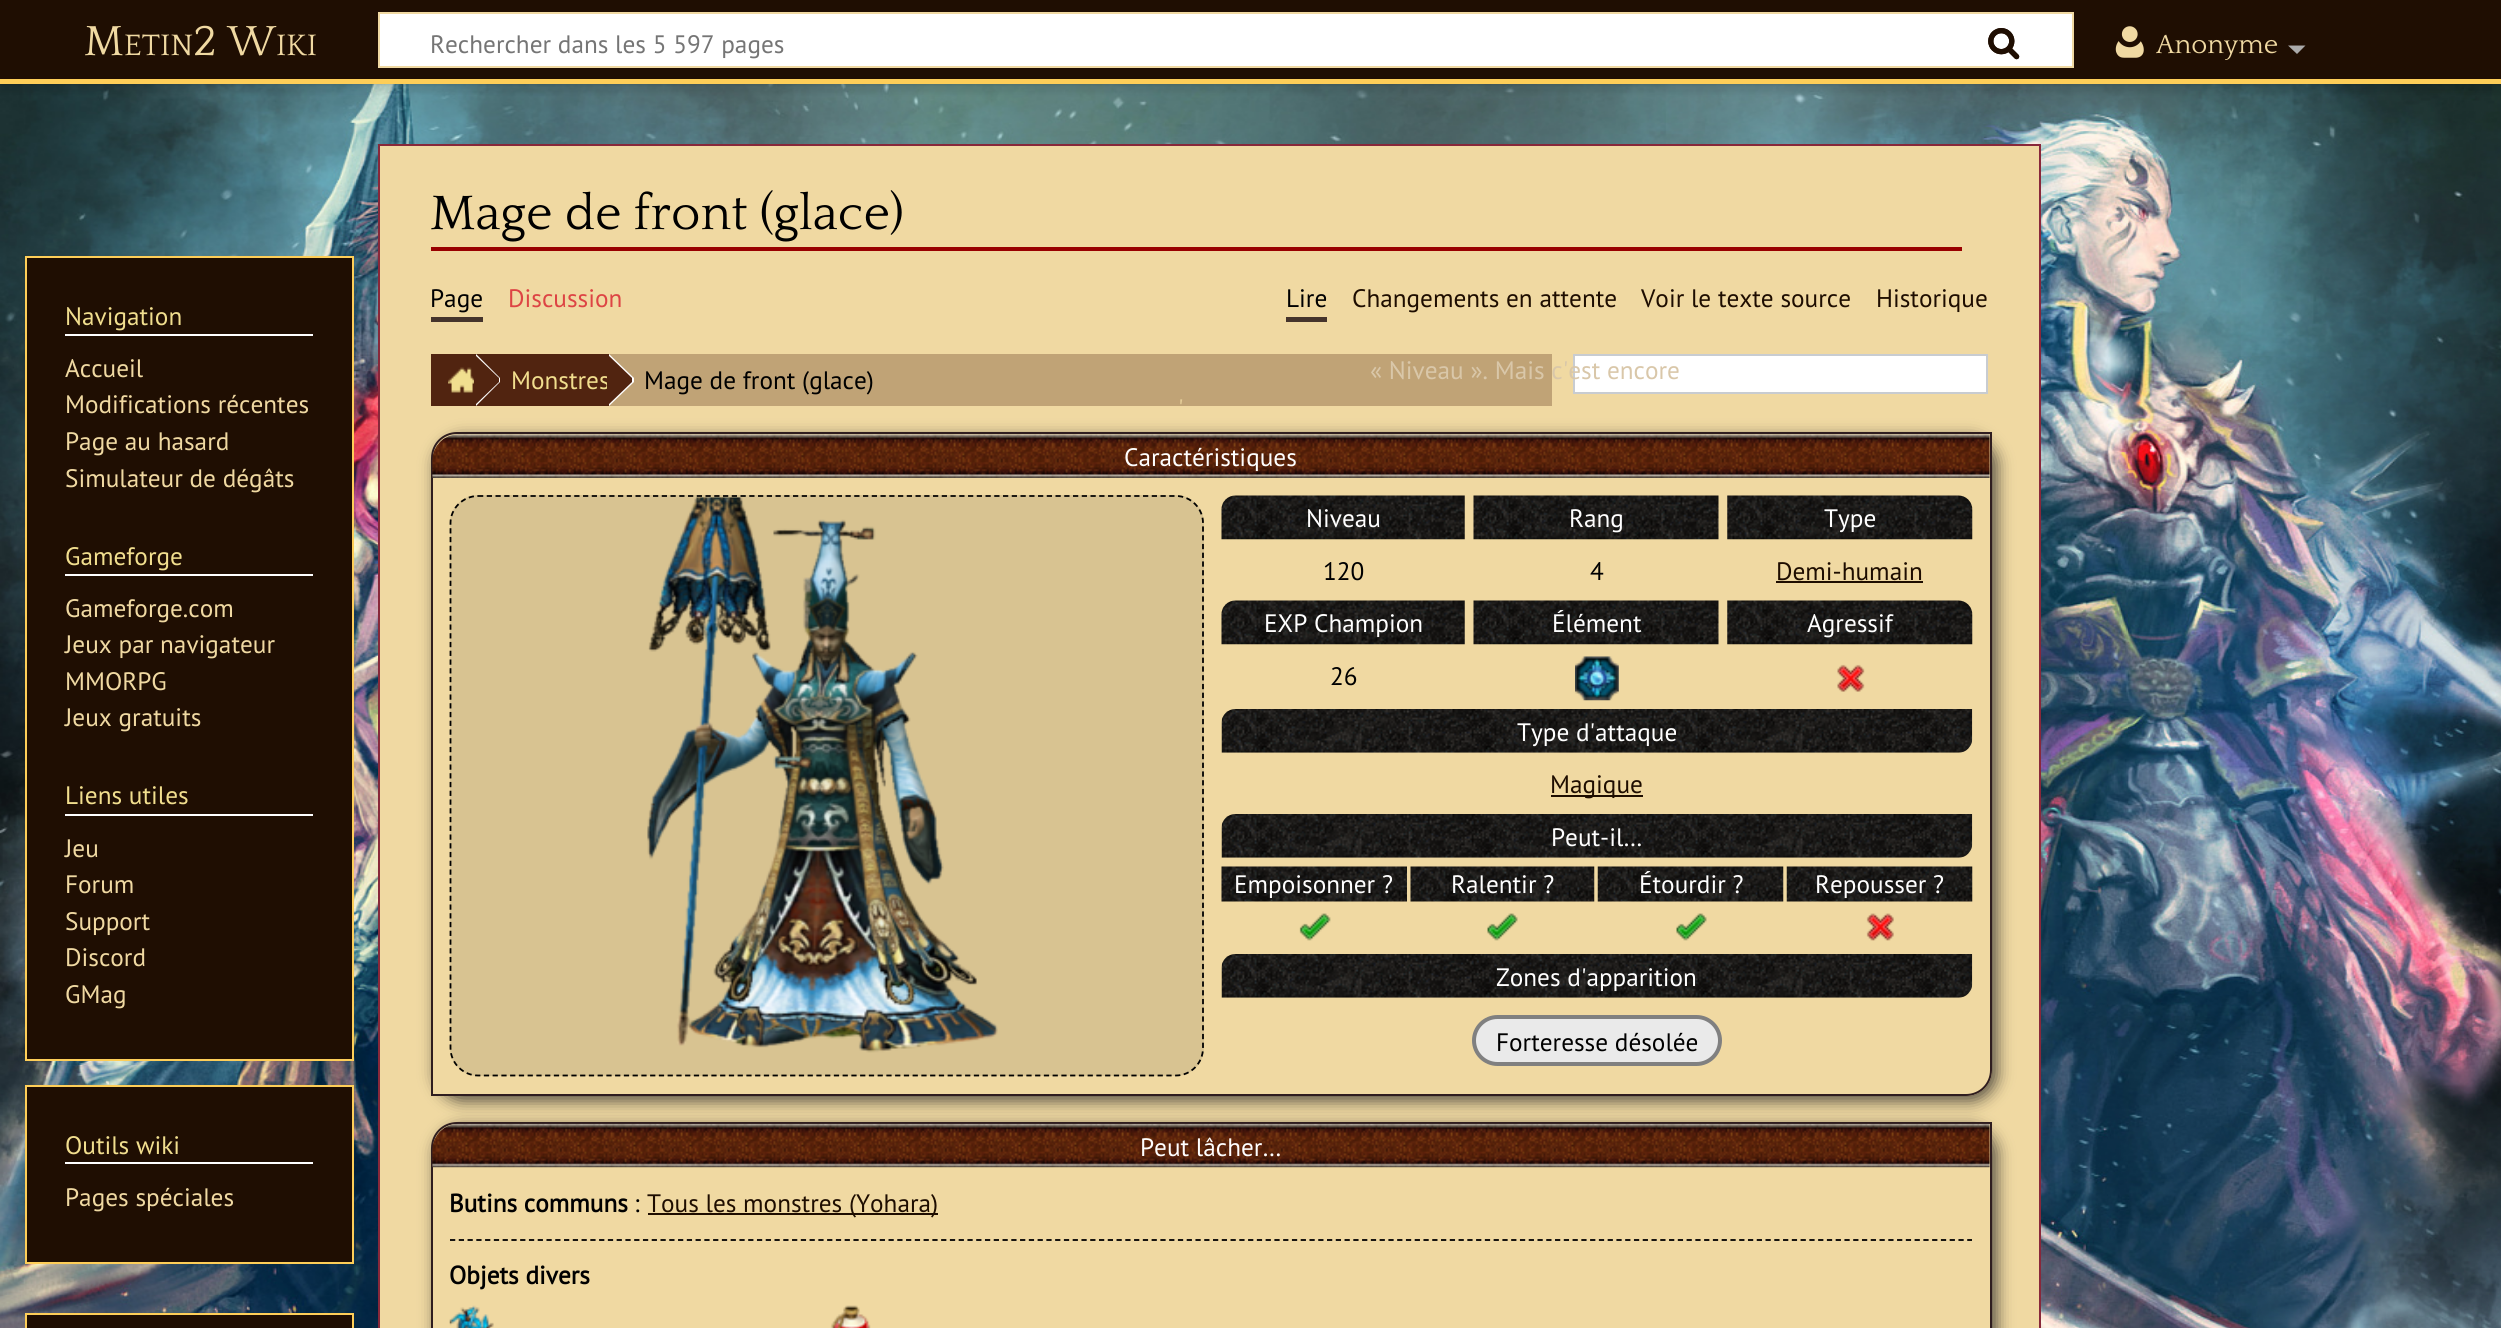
#include <cairo.h>
#include <math.h>
#include <stddef.h>

static cairo_t *c;
static void C(unsigned color){cairo_set_source_rgb(c, (color >> 16) / 255.0, (color >> 8 & 255) / 255.0, (color & 255) / 255.0);}
static void F(const char *family, double size, int italic, int bold){cairo_select_font_face(c, family, italic ? CAIRO_FONT_SLANT_ITALIC : CAIRO_FONT_SLANT_NORMAL,bold ? CAIRO_FONT_WEIGHT_BOLD : CAIRO_FONT_WEIGHT_NORMAL);cairo_set_font_size(c, size);}
static void T(double x, double y, const char *s){cairo_move_to(c, x, y);cairo_show_text(c, s);}
static void R(double x, double y, double w, double h){cairo_rectangle(c, x, y, w, h);cairo_fill(c);}
static void Q(double x, double y, double w, double h, double r){cairo_new_sub_path(c);cairo_arc(c, x + w - r, y + h - r, r, 0, M_PI / 2);cairo_arc(c, x + r, y + h - r, r, M_PI / 2, M_PI);cairo_arc(c, x + r, y + r, r, M_PI, 1.5 * M_PI);cairo_arc(c, x + w - r, y + r, r, 1.5 * M_PI, 2 * M_PI);cairo_close_path(c);}
static void S(double x, double y, double w, double h, double r, double blur, double alpha){cairo_push_group_with_content(c, CAIRO_CONTENT_ALPHA);cairo_set_operator(c, CAIRO_OPERATOR_SOURCE);for (int i = 15; i >= -15 && fmin(w, h) + blur * i / 3 > 0; i -= 2) {double e = blur * i / 6;cairo_set_source_rgba(c, 0, 0, 0, alpha * erfc((i - 1) / 8.5) / 2);Q(x - e, y - e, w + 2 * e, h + 2 * e, fmax(0, fmin(r + e + blur * .6, fmin(w, h) / 2 + e)));cairo_fill(c);}cairo_pattern_t *soft = cairo_pop_group(c);cairo_mask(c, soft);cairo_pattern_destroy(soft);}
static void I(const char *path, double x, double y, double w, double h){cairo_surface_t *image = cairo_image_surface_create_from_png(path);cairo_save(c);cairo_set_source_surface(c, image, x, y);cairo_rectangle(c, x, y, w, h);cairo_fill(c);cairo_restore(c);cairo_surface_destroy(image);}
int main(void) {
cairo_surface_t *surface = cairo_image_surface_create(CAIRO_FORMAT_RGB24, 2501, 1328);
c = cairo_create(surface);
cairo_font_options_t *options = cairo_font_options_create();
cairo_font_options_set_hint_metrics(options, CAIRO_HINT_METRICS_OFF);
cairo_font_options_set_hint_style(options, CAIRO_HINT_STYLE_NONE);
cairo_set_font_options(c, options);
cairo_set_miter_limit(c, 4);
C(0xffffff);
cairo_paint(c);
I("1.png",0,84,2501,1244);
C(0x000000);
S(0,79,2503,5,0,2,.2);
S(-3,81,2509,12,0,2.5,.07);
C(0x1f0e02);
R(0,0,2501,79);
F("Quattrocento",44,0,0);
C(0xf0d9a2);
T(84,55,"M");
F("Quattrocento",31,0,0);
T(124,55,"ETIN");
F("Quattrocento",44,0,0);
T(193,55,"2 W");
F("Quattrocento",31,0,0);
T(276,55,"IKI");
C(0xffffff);
cairo_rectangle(c,379,13,1694,54);
cairo_fill_preserve(c);
C(0xf0d9a2);
cairo_stroke(c);
I("2.png",1988,28,32,32);
F("PT Sans",25.25,0,0);
C(0x757575);
T(430,53,"Rechercher dans les 5 597 pages");
I("3.png",1988,28,32,32);
I("4.png",2115,26,29,32);
cairo_save(c);
cairo_rectangle(c,2156,32,123,28);
cairo_clip(c);
F("Quattrocento",27.5,0,0);
C(0xf0d9a2);
T(2156,53,"Anonyme");
cairo_restore(c);
C(0xaaaaaa);
cairo_new_path(c);
cairo_move_to(c,2305.5,45.5);
cairo_line_to(c,2297,54);
cairo_line_to(c,2288,45.5);
cairo_close_path(c);
cairo_fill(c);
C(0xfece58);
R(0,79,2501,5);
C(0x1f0e02);
cairo_rectangle(c,26,257,327,803);
cairo_fill_preserve(c);
C(0xfece58);
cairo_stroke(c);
C(0xffffff);
R(65,334,248,2);
C(0xf1de8e);
T(65,325,"Navigation");
C(0xf0d9a2);
T(65,377,"Accueil");
T(65,413,"Modifications récentes");
T(65,450,"Page au hasard");
T(65,487,"Simulateur de dégâts");
C(0xffffff);
R(65,574,248,2);
C(0xf1de8e);
T(65,565,"Gameforge");
C(0xf0d9a2);
T(65,617,"Gameforge.com");
T(65,653,"Jeux par navigateur");
T(65,690,"MMORPG");
T(65,726,"Jeux gratuits");
C(0xffffff);
R(65,814,248,2);
C(0xf1de8e);
T(65,804,"Liens utiles");
C(0xf0d9a2);
T(65,857,"Jeu");
T(65,893,"Forum");
T(65,930,"Support");
T(65,966,"Discord");
T(65,1003,"GMag");
C(0x1f0e02);
cairo_rectangle(c,26,1086,327,177);
cairo_fill_preserve(c);
C(0xfece58);
cairo_stroke(c);
C(0xffffff);
R(65,1162,248,2);
C(0xf1de8e);
T(65,1154,"Outils wiki");
C(0xf0d9a2);
T(65,1206,"Pages spéciales");
cairo_rectangle(c,379,145,1661,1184);
cairo_fill_preserve(c);
C(0x88283a);
cairo_stroke(c);
C(0x990000);
R(431,247,1531,4);
F("Quattrocento",50.5,0,0);
C(0x000000);
T(430,229,"Mage de front (glace)");
C(0x45342c);
R(431,317,52,5);
F("PT Sans",25.25,0,0);
C(0x000000);
T(430,307,"Page");
C(0xdd4444);
T(508,307,"Discussion");
C(0x45342c);
R(1286,317,41,5);
C(0x000000);
T(1286,307,"Lire");
C(0x1e0d00);
T(1352,307,"Changements en attente");
T(1641,307,"Voir le texte source");
T(1876,307,"Historique");
C(0xffffff);
cairo_rectangle(c,1574,355,413,38);
cairo_fill_preserve(c);
C(0xc8ccd1);
cairo_stroke(c);
C(0xc0a376);
R(609,354,943,52);
C(0x512410);
R(431,354,178,52);
C(0xffffff);
cairo_new_path(c);
cairo_move_to(c,476,406);
cairo_line_to(c,476,354);
cairo_line_to(c,500,378);
cairo_line_to(c,500,382);
cairo_close_path(c);
cairo_fill(c);
C(0x512410);
cairo_new_path(c);
cairo_move_to(c,474,406);
cairo_line_to(c,474,354);
cairo_line_to(c,499,378);
cairo_line_to(c,499,382);
cairo_close_path(c);
cairo_fill(c);
I("5.png",448,367,26,26);
C(0xf1de8e);
T(511,389,"Monstres");
C(0xffffff);
cairo_new_path(c);
cairo_move_to(c,609,406);
cairo_line_to(c,609,354);
cairo_line_to(c,634,378);
cairo_line_to(c,634,382);
cairo_close_path(c);
cairo_fill(c);
C(0x512410);
cairo_new_path(c);
cairo_move_to(c,607,406);
cairo_line_to(c,607,354);
cairo_line_to(c,632,378);
cairo_line_to(c,632,382);
cairo_close_path(c);
cairo_fill(c);
C(0x000000);
T(644,389,"Mage de front (glace)");
cairo_save(c);
cairo_set_fill_rule(c,CAIRO_FILL_RULE_EVEN_ODD);
cairo_new_path(c);
cairo_move_to(c,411,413);
cairo_line_to(c,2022,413);
cairo_line_to(c,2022,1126);
cairo_line_to(c,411,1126);
cairo_close_path(c);
cairo_move_to(c,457,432);
cairo_line_to(c,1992,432);
cairo_line_to(c,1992,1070);
cairo_curve_to(c,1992,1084.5,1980.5,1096,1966,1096);
cairo_line_to(c,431,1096);
cairo_line_to(c,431,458);
cairo_curve_to(c,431,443.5,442.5,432,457,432);
cairo_close_path(c);
cairo_clip(c);
C(0x544e41);
S(436,438,1561,663,26,8,1);
cairo_restore(c);
cairo_new_path(c);
cairo_move_to(c,457,433);
cairo_line_to(c,1991,433);
cairo_line_to(c,1991,1070);
cairo_curve_to(c,1991,1084,1980,1095,1966,1095);
cairo_line_to(c,432,1095);
cairo_line_to(c,432,458);
cairo_curve_to(c,432,444,443,433,457,433);
cairo_close_path(c);
C(0x2f1d1f);
cairo_stroke(c);
C(0xd8c391);
Q(450,495,754,581,28);
cairo_fill(c);
cairo_new_path(c);
cairo_move_to(c,478,496);
cairo_line_to(c,1176,496);
cairo_curve_to(c,1191,496,1203,508.5,1203,523);
cairo_line_to(c,1203,1048);
cairo_curve_to(c,1203,1063,1191,1075.5,1176,1075.5);
cairo_line_to(c,478,1075.5);
cairo_curve_to(c,463,1075.5,450.5,1063,450.5,1048);
cairo_line_to(c,450.5,523);
cairo_curve_to(c,450.5,508.5,463,496,478,496);
cairo_close_path(c);
C(0x000000);
cairo_set_line_width(c,1.8);
cairo_set_dash(c,(double[]){5.25,3.5},2,0);
cairo_stroke(c);
I("6.png",647,497,351,556);
I("7.png",1221,495,244,45);
C(0xe5cd98);
T(1178,417,"'");
C(0xffffff);
T(1306,527,"Niveau");
C(0x000000);
T(1323,580,"120");
I("8.png",1473,495,246,45);
C(0xd9c7a9);
T(1370,379,"« Niveau ». Mais c'est encore");
C(0xffffff);
T(1569,527,"Rang");
C(0x000000);
T(1590,580,"4");
I("9.png",1727,495,246,45);
C(0xffffff);
T(1824,527,"Type");
C(0x1e0d00);
T(1776,580,"Demi-humain");
R(1776,581,147,2);
I("7.png",1221,600,244,45);
C(0xffffff);
T(1264,632,"EXP Champion");
C(0x000000);
T(1330,685,"26");
I("8.png",1473,600,246,45);
C(0xffffff);
T(1552,632,"Élément");
I("10.png",1575,656,44,45);
I("9.png",1727,600,246,45);
T(1807,632,"Agressif");
I("11.png",1837,664,28,28);
I("12.png",1221,709,752,44);
T(1517,741,"Type d'attaque");
C(0x1e0d00);
R(1551,795,92,2);
T(1550,793,"Magique");
I("13.png",1221,814,752,44);
C(0xffffff);
T(1551,846,"Peut-il…");
I("14.png",1221,866,186,36);
T(1234,893,"Empoisonner ?");
I("15.png",1299,913,32,28);
I("16.png",1410,866,185,36);
T(1451,893,"Ralentir ?");
I("17.png",1487,913,31,28);
I("18.png",1597,866,187,36);
T(1639,893,"Étourdir ?");
I("17.png",1676,913,31,28);
I("19.png",1786,866,187,36);
T(1815,893,"Repousser ?");
I("20.png",1866,913,28,28);
I("21.png",1221,954,752,44);
T(1496,986,"Zones d'apparition");
C(0xeaeaea);
Q(1474,1017,246,47,23.5);
cairo_fill_preserve(c);
C(0x808080);
cairo_set_line_width(c,4);
cairo_set_dash(c,NULL,0,0);
cairo_stroke(c);
C(0x000000);
T(1496,1051,"Forteresse désolée");
I("22.png",432,434,1558,44);
C(0xffffff);
T(1124,466,"Caractéristiques");
cairo_save(c);
cairo_set_fill_rule(c,CAIRO_FILL_RULE_EVEN_ODD);
cairo_new_path(c);
cairo_move_to(c,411,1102);
cairo_line_to(c,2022,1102);
cairo_line_to(c,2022,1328);
cairo_line_to(c,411,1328);
cairo_close_path(c);
cairo_move_to(c,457,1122);
cairo_line_to(c,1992,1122);
cairo_line_to(c,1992,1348);
cairo_curve_to(c,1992,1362.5,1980.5,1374,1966,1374);
cairo_line_to(c,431,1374);
cairo_line_to(c,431,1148);
cairo_curve_to(c,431,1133.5,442.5,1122,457,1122);
cairo_close_path(c);
cairo_clip(c);
C(0x544e41);
S(436,1127,1561,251,26,8,1);
cairo_restore(c);
cairo_new_path(c);
cairo_move_to(c,457,1123);
cairo_line_to(c,1991,1123);
cairo_line_to(c,1991,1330);
cairo_curve_to(c,1991,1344,1980,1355,1966,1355);
cairo_line_to(c,432,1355);
cairo_line_to(c,432,1148);
cairo_curve_to(c,432,1134,443,1123,457,1123);
cairo_close_path(c);
C(0x2f1d1f);
cairo_set_line_width(c,2);
cairo_stroke(c);
I("23.png",432,1123,1558,45);
C(0xffffff);
T(1140,1156,"Peut lâcher…");
cairo_new_path(c);
cairo_move_to(c,450,1240);
cairo_line_to(c,1972,1240);
C(0x000000);
cairo_set_line_width(c,1.8);
cairo_set_dash(c,(double[]){5.25,3.52},2,0);
cairo_stroke(c);
F("PT Sans",25.25,0,1);
T(449,1212,"Butins communs");
F("PT Sans",25.25,0,0);
T(634,1212,":");
C(0x1e0d00);
R(648,1213,290,2);
T(647,1212,"Tous les monstres (Yohara)");
F("PT Sans",25.25,0,1);
C(0x000000);
T(449,1284,"Objets divers");
I("24.png",449,1305,45,23);
I("25.png",830,1305,41,23);
C(0x1f0e02);
cairo_rectangle(c,26,1314,327,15);
cairo_fill_preserve(c);
C(0xfece58);
cairo_set_line_width(c,2);
cairo_set_dash(c,NULL,0,0);
cairo_stroke(c);
cairo_surface_write_to_png(surface, "o.png");
cairo_font_options_destroy(options);
cairo_destroy(c);
cairo_surface_destroy(surface);
return 0;
}
